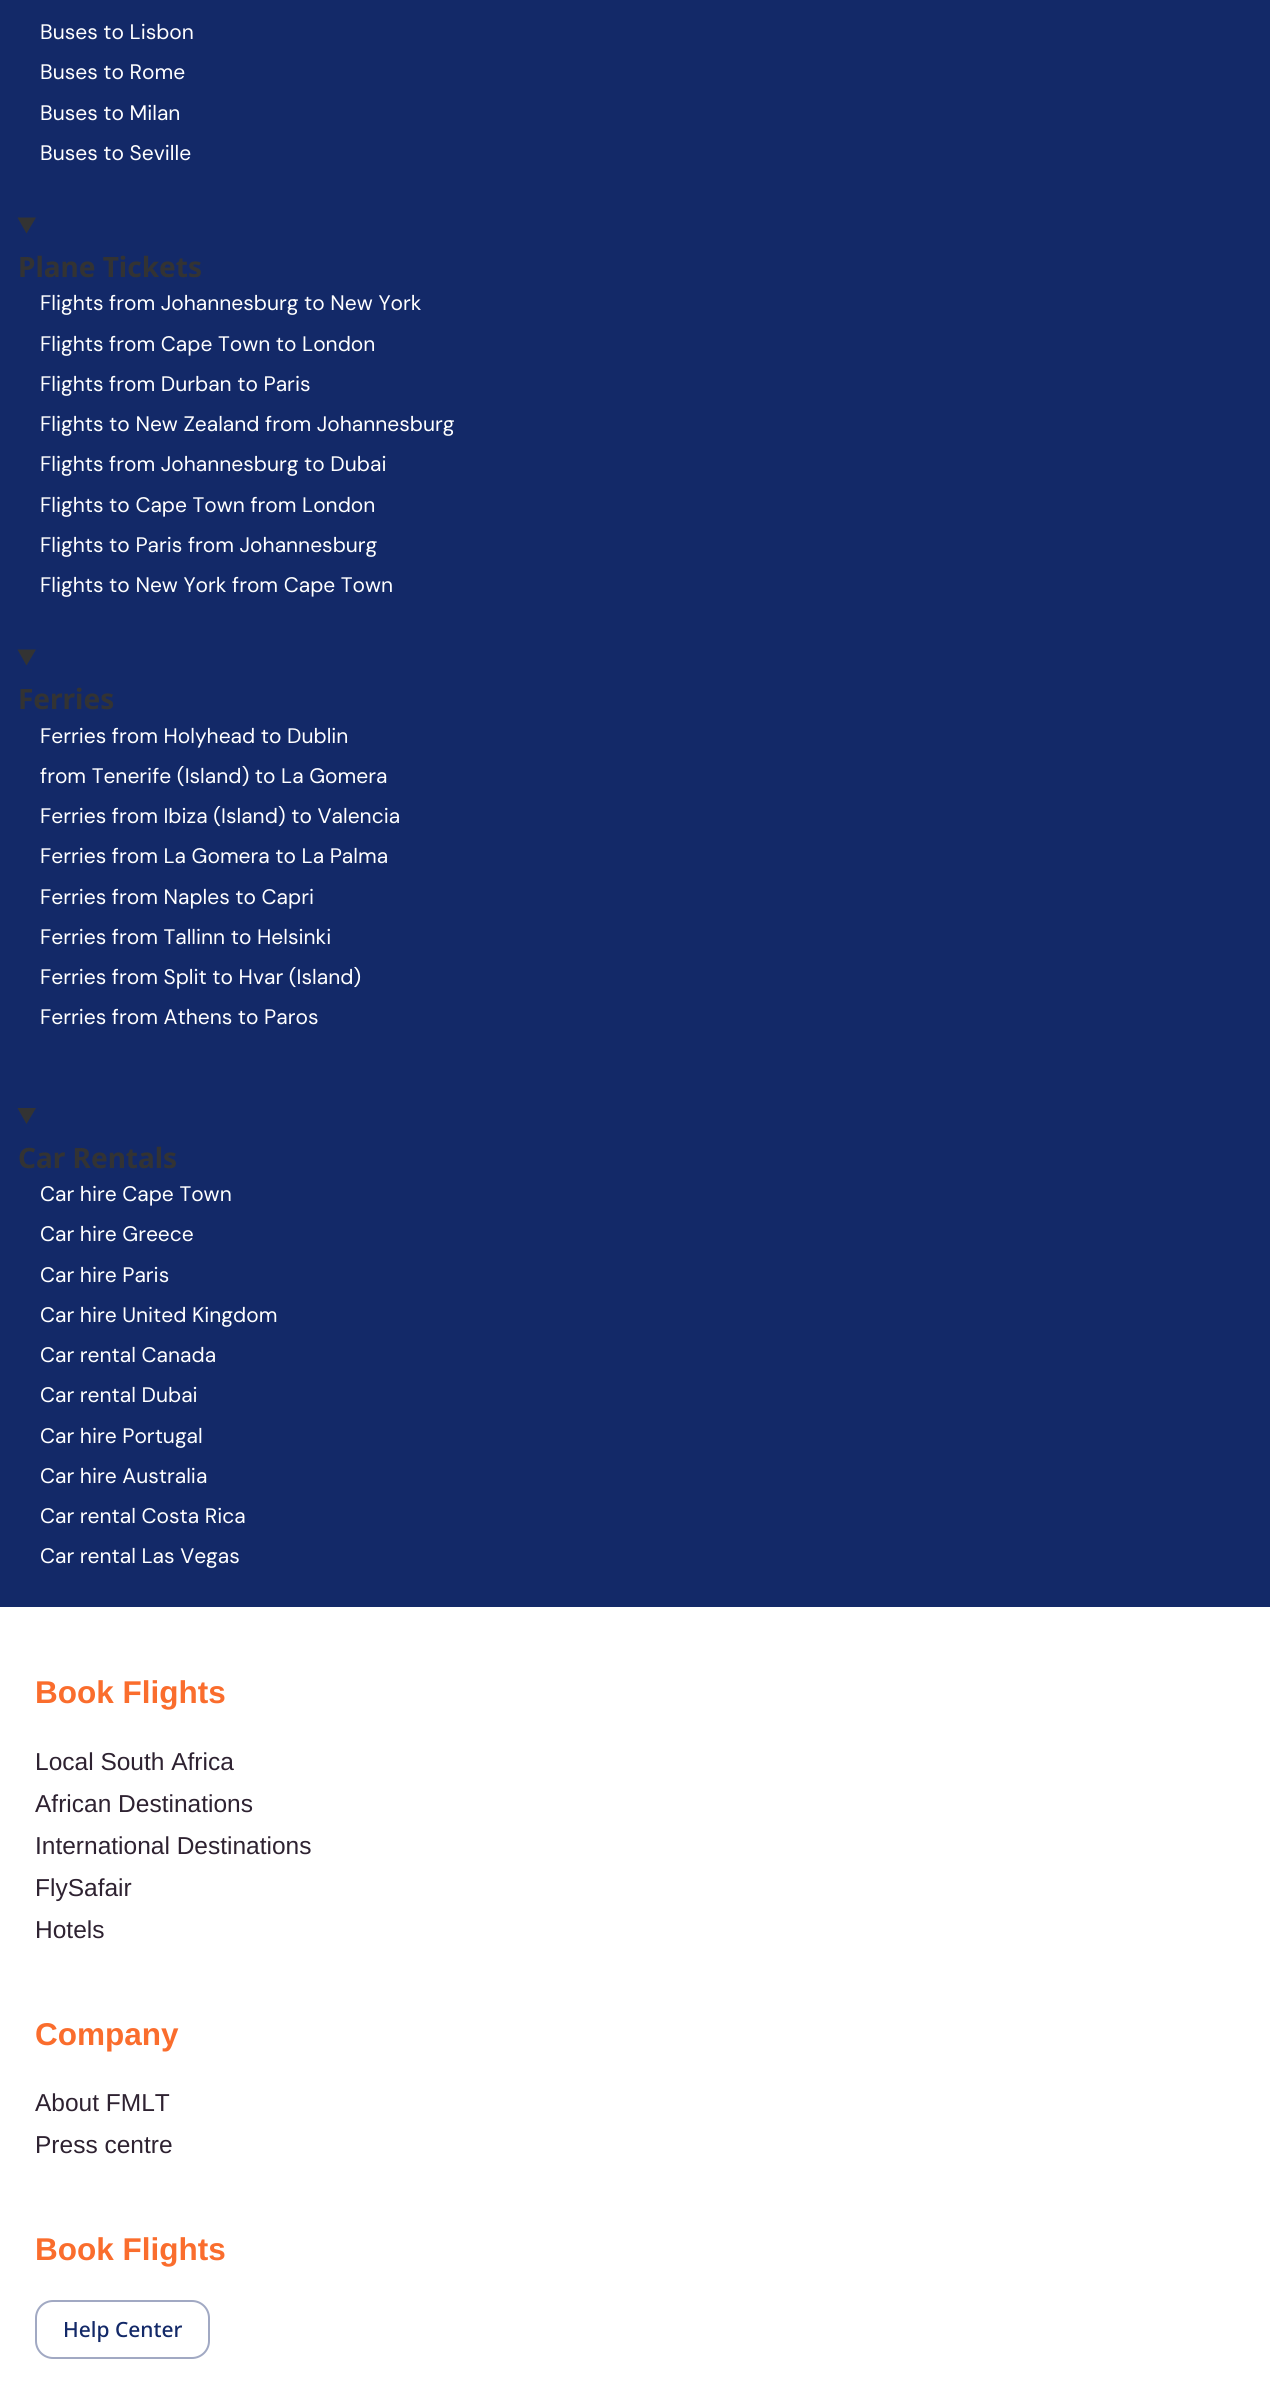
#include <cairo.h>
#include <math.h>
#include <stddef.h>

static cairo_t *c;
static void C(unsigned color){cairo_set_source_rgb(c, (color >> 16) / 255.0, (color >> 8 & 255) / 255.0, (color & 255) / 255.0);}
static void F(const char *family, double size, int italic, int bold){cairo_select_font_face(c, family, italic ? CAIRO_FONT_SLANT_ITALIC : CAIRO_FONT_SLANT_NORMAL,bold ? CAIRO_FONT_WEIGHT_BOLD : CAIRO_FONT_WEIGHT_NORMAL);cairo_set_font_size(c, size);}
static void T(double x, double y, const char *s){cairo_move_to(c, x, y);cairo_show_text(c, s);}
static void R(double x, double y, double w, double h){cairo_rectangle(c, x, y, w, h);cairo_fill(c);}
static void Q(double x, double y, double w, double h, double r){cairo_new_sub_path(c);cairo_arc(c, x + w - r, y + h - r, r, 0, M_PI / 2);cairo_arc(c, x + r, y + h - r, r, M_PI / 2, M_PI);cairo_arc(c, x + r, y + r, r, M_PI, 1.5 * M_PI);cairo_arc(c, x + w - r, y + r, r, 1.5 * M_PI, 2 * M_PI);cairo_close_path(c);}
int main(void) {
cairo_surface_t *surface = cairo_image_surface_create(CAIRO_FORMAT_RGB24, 1270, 2398);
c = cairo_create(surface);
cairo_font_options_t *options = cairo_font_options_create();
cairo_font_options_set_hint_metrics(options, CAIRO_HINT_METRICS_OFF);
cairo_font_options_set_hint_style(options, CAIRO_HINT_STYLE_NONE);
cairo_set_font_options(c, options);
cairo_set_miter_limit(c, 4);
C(0xffffff);
cairo_paint(c);
C(0x132968);
R(0,0,1270,1607);
F("DM Sans",21,0,0);
C(0xffffff);
T(40,39,"Buses to Lisbon");
T(40,79,"Buses to Rome");
T(40,120,"Buses to Milan");
T(40,160,"Buses to Seville");
C(0x333333);
cairo_new_path(c);
cairo_move_to(c,17.5,217.5);
cairo_line_to(c,36,217.5);
cairo_line_to(c,26.5,233.5);
cairo_close_path(c);
cairo_fill(c);
F("Noto Sans",28,0,1);
T(18,277,"Plane Tickets");
F("DM Sans",21,0,0);
C(0xffffff);
T(40,310,"Flights from Johannesburg to New York");
T(40,351,"Flights from Cape Town to London");
T(40,391,"Flights from Durban to Paris");
T(40,431,"Flights to New Zealand from Johannesburg");
T(40,471,"Flights from Johannesburg to Dubai");
T(40,512,"Flights to Cape Town from London");
T(40,552,"Flights to Paris from Johannesburg");
T(40,592,"Flights to New York from Cape Town");
C(0x333333);
cairo_new_path(c);
cairo_move_to(c,17.5,649.5);
cairo_line_to(c,36,649.5);
cairo_line_to(c,26.5,665.5);
cairo_close_path(c);
cairo_fill(c);
F("Noto Sans",28,0,1);
T(18,709,"Ferries");
F("DM Sans",21,0,0);
C(0xffffff);
T(40,743,"Ferries from Holyhead to Dublin");
T(40,783,"from Tenerife (Island) to La Gomera");
T(40,823,"Ferries from Ibiza (Island) to Valencia");
T(40,863,"Ferries from La Gomera to La Palma");
T(40,904,"Ferries from Naples to Capri");
T(40,944,"Ferries from Tallinn to Helsinki");
T(40,984,"Ferries from Split to Hvar (Island)");
T(40,1024,"Ferries from Athens to Paros");
C(0x333333);
cairo_new_path(c);
cairo_move_to(c,17.5,1108);
cairo_line_to(c,36,1108);
cairo_line_to(c,26.5,1124);
cairo_close_path(c);
cairo_fill(c);
F("Noto Sans",28,0,1);
T(18,1168,"Car Rentals");
F("DM Sans",21,0,0);
C(0xffffff);
T(40,1201,"Car hire Cape Town");
T(40,1241,"Car hire Greece");
T(40,1282,"Car hire Paris");
T(40,1322,"Car hire United Kingdom");
T(40,1362,"Car rental Canada");
T(40,1402,"Car rental Dubai");
T(40,1443,"Car hire Portugal");
T(40,1483,"Car hire Australia");
T(40,1523,"Car rental Costa Rica");
T(40,1563,"Car rental Las Vegas");
F("Liberation Sans",31.5,0,1);
C(0xfa6d2d);
T(35,1703,"Book Flights");
F("Liberation Sans",24.5,0,0);
C(0x2e2231);
T(35,1770,"Local South Africa");
T(35,1812,"African Destinations");
T(35,1854,"International Destinations");
T(35,1896,"FlySafair");
T(35,1938,"Hotels");
F("Liberation Sans",31.5,0,1);
C(0xfa6d2d);
T(35,2045,"Company");
F("Liberation Sans",24.5,0,0);
C(0x2e2231);
T(35,2111,"About FMLT");
T(35,2153,"Press centre");
F("Liberation Sans",31.5,0,1);
C(0xfa6d2d);
T(35,2260,"Book Flights");
Q(36,2301,173,57,17);
C(0xa1a9c3);
cairo_stroke(c);
F("Noto Sans Medium",21,0,0);
C(0x132968);
T(63,2337,"Help Center");
cairo_surface_write_to_png(surface, "o.png");
cairo_font_options_destroy(options);
cairo_destroy(c);
cairo_surface_destroy(surface);
return 0;
}
